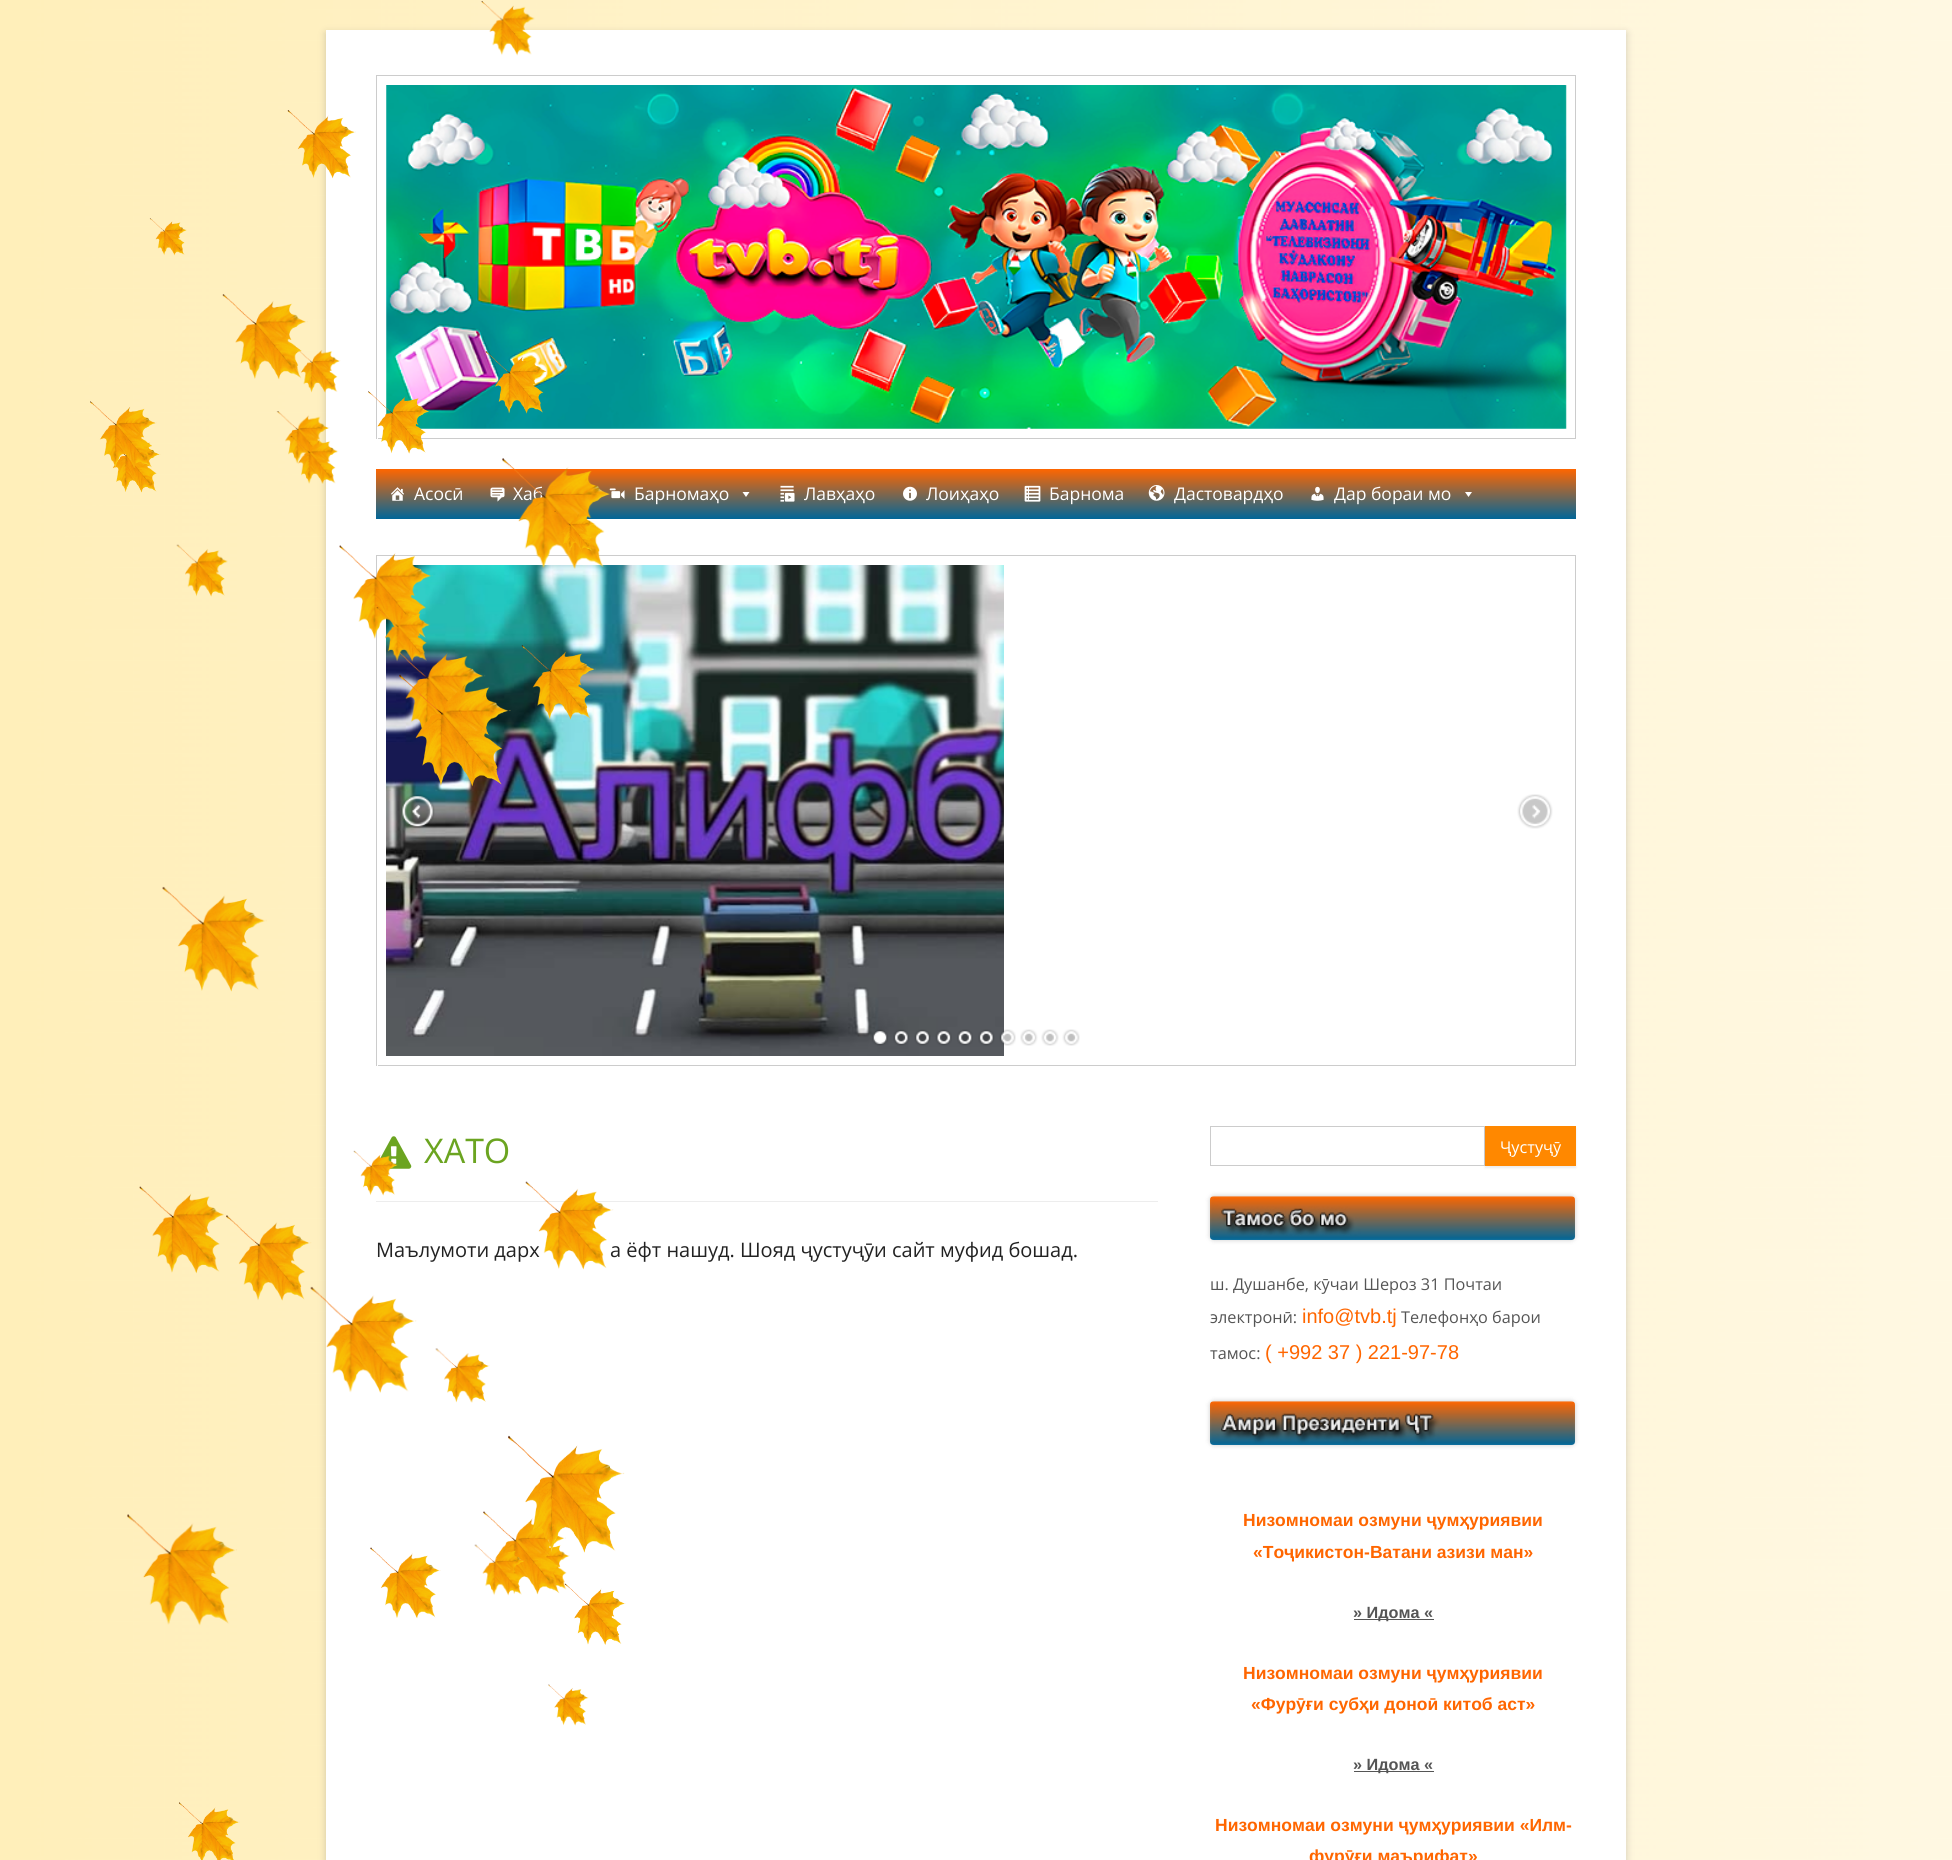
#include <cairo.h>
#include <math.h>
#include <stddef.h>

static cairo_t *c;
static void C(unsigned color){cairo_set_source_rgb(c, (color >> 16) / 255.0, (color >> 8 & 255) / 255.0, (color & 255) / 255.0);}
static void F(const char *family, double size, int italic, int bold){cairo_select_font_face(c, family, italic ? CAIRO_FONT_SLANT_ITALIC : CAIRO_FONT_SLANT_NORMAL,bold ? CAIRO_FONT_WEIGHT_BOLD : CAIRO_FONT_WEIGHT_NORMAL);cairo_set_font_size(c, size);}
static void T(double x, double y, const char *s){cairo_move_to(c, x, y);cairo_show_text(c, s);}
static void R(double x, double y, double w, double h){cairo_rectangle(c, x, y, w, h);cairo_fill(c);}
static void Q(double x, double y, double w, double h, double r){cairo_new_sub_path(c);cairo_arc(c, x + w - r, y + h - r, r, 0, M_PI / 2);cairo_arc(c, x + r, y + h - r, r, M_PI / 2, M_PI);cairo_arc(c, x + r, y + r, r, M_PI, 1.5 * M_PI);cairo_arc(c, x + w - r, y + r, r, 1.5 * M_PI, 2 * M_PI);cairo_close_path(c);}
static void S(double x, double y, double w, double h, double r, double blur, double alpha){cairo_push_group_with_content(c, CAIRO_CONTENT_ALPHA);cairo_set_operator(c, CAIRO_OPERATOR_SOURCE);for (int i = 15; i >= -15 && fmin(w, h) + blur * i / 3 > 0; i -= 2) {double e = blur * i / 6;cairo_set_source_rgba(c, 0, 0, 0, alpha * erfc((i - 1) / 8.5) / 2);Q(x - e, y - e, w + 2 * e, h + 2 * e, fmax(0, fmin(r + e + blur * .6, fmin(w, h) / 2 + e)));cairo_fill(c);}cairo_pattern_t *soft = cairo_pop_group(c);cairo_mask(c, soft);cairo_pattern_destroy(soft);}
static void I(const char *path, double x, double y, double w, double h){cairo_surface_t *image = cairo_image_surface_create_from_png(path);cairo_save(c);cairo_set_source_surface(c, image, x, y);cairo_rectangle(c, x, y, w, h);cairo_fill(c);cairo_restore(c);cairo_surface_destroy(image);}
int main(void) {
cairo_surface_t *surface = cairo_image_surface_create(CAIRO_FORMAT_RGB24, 1952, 1860);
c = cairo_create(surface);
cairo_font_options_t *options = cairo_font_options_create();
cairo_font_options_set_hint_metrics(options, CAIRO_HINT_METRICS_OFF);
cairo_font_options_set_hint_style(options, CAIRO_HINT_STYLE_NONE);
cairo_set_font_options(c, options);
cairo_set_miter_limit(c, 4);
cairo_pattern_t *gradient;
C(0xffffff);
cairo_paint(c);
I("1.png",0,0,1952,1860);
C(0x646464);
S(326,33,1300,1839,0,4,.3);
C(0xffffff);
R(326,30,1300,1830);
I("2.png",481,1,54,55);
I("3.png",287,110,69,69);
I("4.png",149,218,38,38);
I("6.png",294,345,47,48);
I("5.png",222,294,86,86);
I("14.png",386,85,1181,344);
I("7.png",485,351,62,63);
I("11.png",105,438,56,55);
I("8.png",90,401,67,67);
I("9.png",276,411,54,53);
C(0xcccccc);
R(376,75,1200,1);
R(376,75,1,364);
R(1575,76,1,363);
R(378,438,1198,1);
I("10.png",368,391,63,63);
I("12.png",290,435,49,49);
gradient = cairo_pattern_create_linear(976,469,976,519);
cairo_pattern_add_color_stop_rgba(gradient,0,1,0.4,0,1);
cairo_pattern_add_color_stop_rgba(gradient,1,0,0.4,0.6,1);
cairo_set_source(c,gradient);
cairo_pattern_destroy(gradient);
R(376,469,1200,50);
I("16.png",490,487,15,15);
F("Open Sans",17.5,0,0);
C(0xffffff);
T(513,500,"Хаб");
I("17.png",609,488,16,11);
C(0xcccccc);
R(376,555,1200,1);
I("23.png",386,565,618,491);
I("13.png",502,458,111,111);
I("15.png",391,487,13,14);
C(0xffffff);
T(414,500,"Асосӣ");
T(634,500,"Барномаҳо");
cairo_new_path(c);
cairo_move_to(c,749.5,492);
cairo_line_to(c,746,497);
cairo_line_to(c,742.5,492);
cairo_close_path(c);
cairo_fill(c);
I("18.png",780,485,15,17);
T(804,500,"Лавҳаҳо");
I("19.png",903,486,14,15);
T(926,500,"Лоиҳаҳо");
I("20.png",1024,485,17,17);
T(1049,500,"Барнома");
I("21.png",1148,485,17,16);
T(1174,500,"Дастовардҳо");
I("22.png",1311,486,13,15);
T(1334,500,"Дар бораи мо");
cairo_new_path(c);
cairo_move_to(c,1472,492);
cairo_line_to(c,1468.5,497);
cairo_line_to(c,1465,492);
cairo_close_path(c);
cairo_fill(c);
C(0xcccccc);
R(376,555,1,511);
R(1575,556,1,510);
R(378,1065,1198,1);
I("24.png",401,794,34,35);
I("25.png",1517,794,36,35);
I("26.png",872,1029,16,17);
I("27.png",893,1029,17,17);
I("28.png",914,1029,17,17);
I("29.png",935,1029,17,17);
I("30.png",957,1029,16,17);
I("31.png",978,1029,17,17);
I("32.png",999,1029,17,17);
I("33.png",1020,1029,18,17);
I("34.png",1041,1029,18,17);
I("35.png",1062,1029,18,17);
C(0xededed);
R(376,1201,782,1);
I("36.png",380,1136,32,33);
F("Open Sans",34,0,0);
C(0x6ba420);
T(424,1163,"ХАТО");
F("Open Sans",20,0,0);
C(0x222222);
T(376,1257,"Маълумоти дарх");
T(610,1257,"а ёфт нашуд. Шояд ҷустуҷӯи сайт муфид бошад.");
cairo_rectangle(c,1210.5,1126.5,274,39);
C(0xcccccc);
cairo_set_line_width(c,1);
cairo_stroke(c);
C(0x404040);
S(1485,1128,91,40,0,1,.1);
C(0xff8800);
R(1485,1126,91,40);
F("Open Sans",16.25,0,0);
C(0xffffff);
T(1500,1153,"Ҷустуҷӯ");
C(0x000000);
S(1210,1196,365,44,4,2.5,.2);
I("37.png",1210,1196,365,44);
C(0x555555);
T(1210,1290,"ш. Душанбе, кӯчаи Шероз 31 Почтаи");
T(1210,1323,"электронӣ:");
F("Liberation Sans",20,0,0);
C(0xff6600);
T(1302,1323,"info@tvb.tj");
F("Open Sans",16.25,0,0);
C(0x555555);
T(1401,1323,"Телефонҳо барои");
T(1210,1359,"тамос:");
F("Liberation Sans",20,0,0);
C(0xff6600);
T(1265,1359,"( +992 37 ) 221-97-78");
C(0x000000);
S(1210,1401,365,44,4,2.5,.2);
I("38.png",1210,1401,365,44);
F("Liberation Sans",17.5,0,1);
C(0xff6600);
T(1243,1526,"Низомномаи озмуни ҷумҳуриявии");
T(1253,1558,"«Тоҷикистон-Ватани азизи ман»");
C(0x555555);
R(1354,1619,80,1);
F("Liberation Sans",16.25,0,1);
T(1353,1618,"» Идома «");
F("Liberation Sans",17.5,0,1);
C(0xff6600);
T(1243,1679,"Низомномаи озмуни ҷумҳуриявии");
T(1251,1710,"«Фурӯғи субҳи доноӣ китоб аст»");
C(0x555555);
R(1354,1771,80,1);
F("Liberation Sans",16.25,0,1);
T(1353,1770,"» Идома «");
F("Liberation Sans",17.5,0,1);
C(0xff6600);
T(1215,1831,"Низомномаи озмуни ҷумҳуриявии «Илм-");
T(1309,1862,"фурӯғи маърифат»");
I("39.png",554,510,41,41);
I("40.png",176,544,52,53);
I("41.png",339,545,94,94);
I("43.png",399,651,87,88);
I("42.png",376,607,55,55);
I("44.png",521,645,75,75);
I("45.png",399,674,112,113);
I("46.png",162,886,105,106);
I("47.png",353,1150,45,46);
I("48.png",139,1186,87,88);
I("49.png",226,1215,86,86);
I("50.png",525,1181,89,89);
I("51.png",310,1286,107,107);
I("52.png",435,1348,55,55);
I("58.png",530,1545,40,46);
I("55.png",483,1511,83,84);
I("53.png",508,1435,117,118);
I("54.png",127,1514,110,112);
I("56.png",370,1547,71,72);
I("57.png",474,1544,51,52);
I("59.png",565,1583,61,62);
I("60.png",548,1684,41,42);
I("61.png",179,1802,61,58);
cairo_surface_write_to_png(surface, "o.png");
cairo_font_options_destroy(options);
cairo_destroy(c);
cairo_surface_destroy(surface);
return 0;
}
